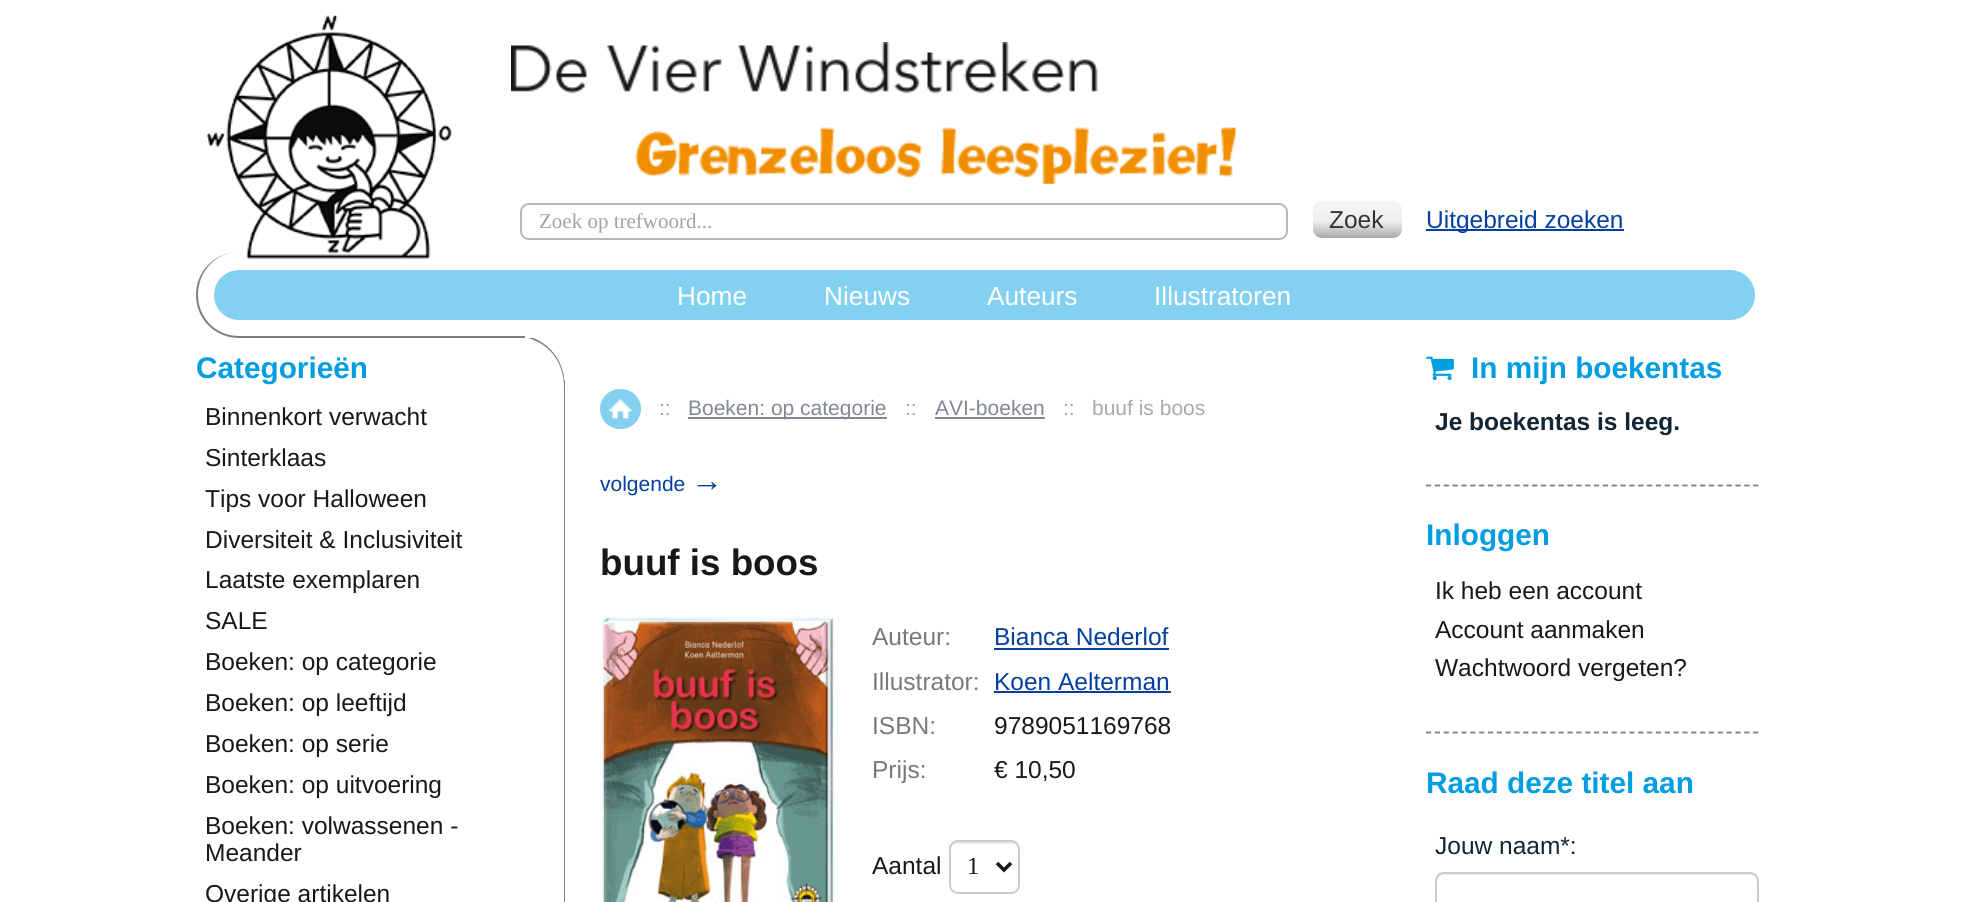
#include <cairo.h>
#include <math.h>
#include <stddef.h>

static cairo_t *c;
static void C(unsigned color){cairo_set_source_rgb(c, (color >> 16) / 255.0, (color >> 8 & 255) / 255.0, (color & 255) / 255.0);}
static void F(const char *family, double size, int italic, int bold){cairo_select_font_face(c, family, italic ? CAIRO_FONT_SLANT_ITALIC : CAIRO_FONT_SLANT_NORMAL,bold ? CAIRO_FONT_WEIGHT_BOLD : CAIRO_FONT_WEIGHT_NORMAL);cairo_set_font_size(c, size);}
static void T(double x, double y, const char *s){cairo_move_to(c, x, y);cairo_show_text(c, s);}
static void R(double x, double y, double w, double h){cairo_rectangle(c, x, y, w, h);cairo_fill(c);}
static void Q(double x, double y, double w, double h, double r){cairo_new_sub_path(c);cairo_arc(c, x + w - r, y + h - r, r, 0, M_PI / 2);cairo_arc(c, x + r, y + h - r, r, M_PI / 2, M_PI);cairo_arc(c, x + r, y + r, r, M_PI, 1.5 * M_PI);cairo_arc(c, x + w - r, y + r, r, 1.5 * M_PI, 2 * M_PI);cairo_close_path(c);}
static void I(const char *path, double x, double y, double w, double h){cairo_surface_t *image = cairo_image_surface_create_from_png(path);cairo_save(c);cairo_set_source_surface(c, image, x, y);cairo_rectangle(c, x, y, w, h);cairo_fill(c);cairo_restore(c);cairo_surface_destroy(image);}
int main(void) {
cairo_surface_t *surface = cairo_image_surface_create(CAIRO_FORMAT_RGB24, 1966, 902);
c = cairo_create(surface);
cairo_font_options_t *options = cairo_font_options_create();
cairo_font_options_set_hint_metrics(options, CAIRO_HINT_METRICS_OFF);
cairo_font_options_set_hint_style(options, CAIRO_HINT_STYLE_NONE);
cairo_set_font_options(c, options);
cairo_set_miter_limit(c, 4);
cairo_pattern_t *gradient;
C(0xffffff);
cairo_paint(c);
C(0x7e7d7f);
cairo_set_fill_rule(c,CAIRO_FILL_RULE_EVEN_ODD);
cairo_new_path(c);
cairo_move_to(c,564,336);
cairo_line_to(c,1404,336);
cairo_line_to(c,1404,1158);
cairo_line_to(c,614,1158);
cairo_curve_to(c,586,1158,564,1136,564,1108);
cairo_close_path(c);
cairo_move_to(c,565,336);
cairo_line_to(c,1404,336);
cairo_line_to(c,1404,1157);
cairo_line_to(c,614,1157);
cairo_curve_to(c,587,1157,565,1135,565,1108);
cairo_close_path(c);
cairo_fill(c);
cairo_save(c);
cairo_set_fill_rule(c,CAIRO_FILL_RULE_WINDING);
cairo_rectangle(c,196,336,1575,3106);
cairo_clip(c);
cairo_set_fill_rule(c,CAIRO_FILL_RULE_EVEN_ODD);
cairo_new_path(c);
cairo_move_to(c,513,334);
cairo_curve_to(c,543,334,565,357,565,387);
cairo_line_to(c,513,387);
cairo_close_path(c);
cairo_move_to(c,513,336);
cairo_curve_to(c,542,336,564,357,564,387);
cairo_line_to(c,513,387);
cairo_close_path(c);
cairo_fill(c);
cairo_restore(c);
C(0xffffff);
R(564,336,1,44);
C(0x7e7d7f);
cairo_new_path(c);
cairo_move_to(c,239,252);
cairo_line_to(c,1771,252);
cairo_line_to(c,1771,338);
cairo_line_to(c,239,338);
cairo_curve_to(c,215,338,196,319,196,295);
cairo_curve_to(c,196,271,215,252,239,252);
cairo_close_path(c);
cairo_move_to(c,239,252);
cairo_line_to(c,1771,252);
cairo_line_to(c,1771,336);
cairo_line_to(c,239,336);
cairo_curve_to(c,216,336,198,318,198,295);
cairo_curve_to(c,198,271,216,252,239,252);
cairo_close_path(c);
cairo_fill(c);
I("1.png",206,15,246,244);
I("2.png",511,42,725,142);
Q(521,204,766,35,8);
C(0xb7b8b9);
cairo_stroke(c);
F("Liberation Serif",21,0,0);
C(0xa2a2a2);
T(539,228,"Zoek op trefwoord...");
gradient = cairo_pattern_create_linear(1357,201,1357,238);
cairo_pattern_add_color_stop_rgba(gradient,0,0.965,0.965,0.969,1);
cairo_pattern_add_color_stop_rgba(gradient,.55,0.933,0.933,0.937,1);
cairo_pattern_add_color_stop_rgba(gradient,1,0.655,0.663,0.667,1);
cairo_set_source(c,gradient);
cairo_pattern_destroy(gradient);
Q(1313,201,89,37,9);
cairo_fill(c);
F("Liberation Sans",24.5,0,0);
C(0x353236);
T(1329,228,"Zoek");
C(0x043fa0);
R(1426,229,198,2);
T(1426,228,"Uitgebreid zoeken");
C(0x83d0f0);
Q(214,270,1541,50,25);
cairo_fill(c);
F("Liberation Sans",26.25,0,0);
C(0xffffff);
T(677,305,"Home");
T(824,305,"Nieuws");
T(987,305,"Auteurs");
T(1154,305,"Illustratoren");
R(525,336,1246,2);
F("Liberation Sans",29.75,0,1);
C(0x009ee0);
T(196,378,"Categorieën");
F("Liberation Sans",24.5,0,0);
C(0x1a171b);
T(205,425,"Binnenkort verwacht");
T(205,466,"Sinterklaas");
T(205,507,"Tips voor Halloween");
T(205,548,"Diversiteit & Inclusiviteit");
T(205,588,"Laatste exemplaren");
T(205,629,"SALE");
T(205,670,"Boeken: op categorie");
T(205,711,"Boeken: op leeftijd");
T(205,752,"Boeken: op serie");
T(205,793,"Boeken: op uitvoering");
T(205,834,"Boeken: volwassenen -");
T(205,861,"Meander");
T(205,902,"Overige artikelen");
C(0x83d0f0);
Q(600,389,41,40,20);
cairo_fill(c);
I("3.png",608,398,25,21);
F("Liberation Sans",21,0,0);
C(0xa2a2a2);
T(659,415,"::");
C(0x818891);
R(688,417,199,2);
T(688,415,"Boeken: op categorie");
C(0xa2a2a2);
T(905,415,"::");
C(0x818891);
T(935,415,"AVI-boeken");
R(935,417,110,2);
C(0xa2a2a2);
T(1063,415,"::");
C(0xa9a9a9);
T(1092,415,"buuf is boos");
C(0x043fa0);
T(600,491,"volgende");
F("Liberation Sans",32,0,0);
T(691,491,"→");
F("Liberation Sans",36.75,0,1);
C(0x1a171b);
T(600,575,"buuf is boos");
I("4.png",600,616,237,286);
F("Liberation Sans",24.5,0,0);
C(0x7a787b);
T(872,645,"Auteur:");
C(0x043fa0);
T(994,645,"Bianca Nederlof");
R(994,648,175,2);
C(0x7a787b);
T(872,690,"Illustrator:");
C(0x043fa0);
T(994,690,"Koen Aelterman");
R(994,691,177,2);
C(0x7a787b);
T(872,734,"ISBN:");
C(0x1a171b);
T(994,734,"9789051169768");
C(0x7a787b);
T(872,778,"Prijs:");
C(0x1a171b);
T(994,778,"€ 10,50");
T(872,874,"Aantal");
C(0xececec);
cairo_set_fill_rule(c,CAIRO_FILL_RULE_WINDING);
cairo_new_path(c);
cairo_move_to(c,957,844);
cairo_line_to(c,1012,844);
cairo_curve_to(c,1015,844,1018,847,1018,850);
cairo_line_to(c,1018,887);
cairo_curve_to(c,1018,889,1018,890,1017,891);
cairo_curve_to(c,1020,888,1019,884,1019,880);
cairo_line_to(c,1019,868);
cairo_curve_to(c,1019,839,1022,842,994,842);
cairo_line_to(c,966,842);
cairo_curve_to(c,959,842,950,840,950,850);
cairo_curve_to(c,950,847,953,844,957,844);
cairo_close_path(c);
cairo_fill(c);
Q(950,841,69,52,8);
C(0xcccccc);
cairo_stroke(c);
cairo_new_path(c);
cairo_move_to(c,997,863);
cairo_line_to(c,1004,870);
cairo_line_to(c,1011,863);
C(0x1a171b);
cairo_set_line_width(c,3.5);
cairo_stroke(c);
F("Liberation Serif",24.5,0,0);
T(967,874,"1");
I("5.png",1426,356,28,25);
F("Liberation Sans",29.75,0,1);
C(0x009ee0);
T(1471,378,"In mijn boekentas");
cairo_new_path(c);
cairo_move_to(c,1426,485.5);
cairo_line_to(c,1759,485.5);
C(0x7e7d7f);
cairo_set_line_width(c,1.8);
cairo_set_dash(c,(double[]){5.25,3.59},2,0);
cairo_stroke(c);
F("Liberation Sans",24.5,0,1);
C(0x112536);
T(1435,430,"Je boekentas is leeg.");
F("Liberation Sans",29.75,0,1);
C(0x009ee0);
T(1426,545,"Inloggen");
cairo_new_path(c);
cairo_move_to(c,1426,732.5);
cairo_line_to(c,1759,732.5);
C(0x7e7d7f);
cairo_stroke(c);
F("Liberation Sans",24.5,0,0);
C(0x1a171b);
T(1435,599,"Ik heb een account");
T(1435,638,"Account aanmaken");
T(1435,676,"Wachtwoord vergeten?");
F("Liberation Sans",29.75,0,1);
C(0x009ee0);
T(1426,793,"Raad deze titel aan");
F("Liberation Sans",24.5,0,0);
C(0x112536);
T(1435,854,"Jouw naam*:");
C(0xececec);
cairo_new_path(c);
cairo_move_to(c,1444,875);
cairo_line_to(c,1750,875);
cairo_curve_to(c,1754,875,1757,878,1757,882);
cairo_line_to(c,1757,880);
cairo_curve_to(c,1757,876,1754,873,1750,873);
cairo_line_to(c,1444,873);
cairo_curve_to(c,1440,873,1437,876,1437,880);
cairo_line_to(c,1437,882);
cairo_curve_to(c,1437,878,1440,875,1444,875);
cairo_close_path(c);
cairo_fill(c);
Q(1436,873,322,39,8);
C(0xcccccc);
cairo_set_line_width(c,2);
cairo_set_dash(c,NULL,0,0);
cairo_stroke(c);
cairo_surface_write_to_png(surface, "o.png");
cairo_font_options_destroy(options);
cairo_destroy(c);
cairo_surface_destroy(surface);
return 0;
}
